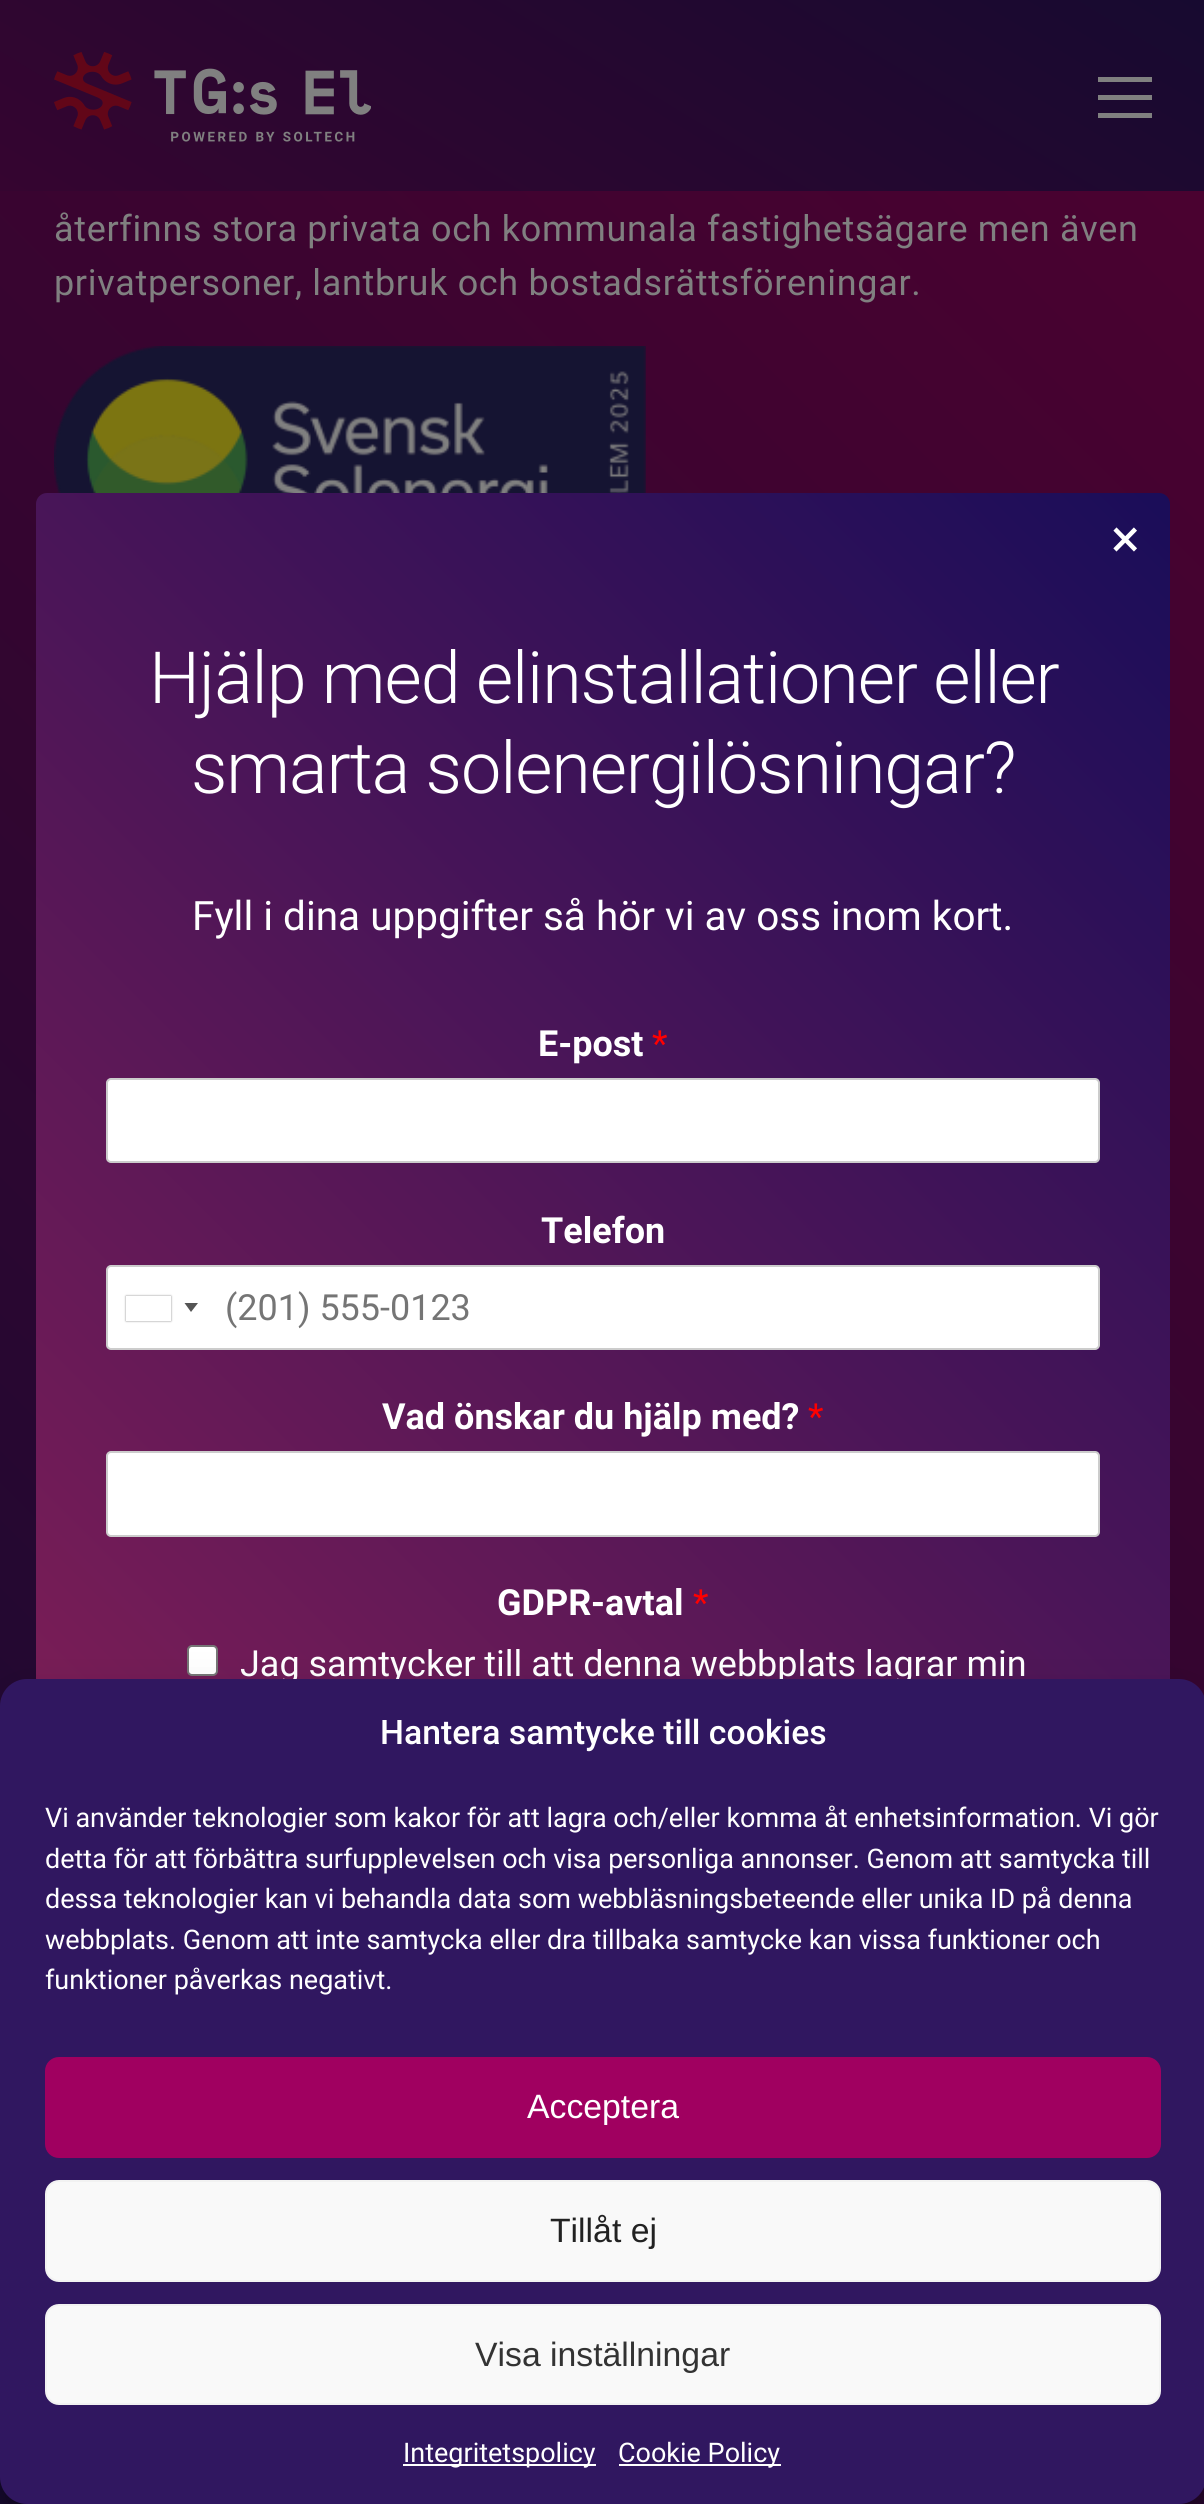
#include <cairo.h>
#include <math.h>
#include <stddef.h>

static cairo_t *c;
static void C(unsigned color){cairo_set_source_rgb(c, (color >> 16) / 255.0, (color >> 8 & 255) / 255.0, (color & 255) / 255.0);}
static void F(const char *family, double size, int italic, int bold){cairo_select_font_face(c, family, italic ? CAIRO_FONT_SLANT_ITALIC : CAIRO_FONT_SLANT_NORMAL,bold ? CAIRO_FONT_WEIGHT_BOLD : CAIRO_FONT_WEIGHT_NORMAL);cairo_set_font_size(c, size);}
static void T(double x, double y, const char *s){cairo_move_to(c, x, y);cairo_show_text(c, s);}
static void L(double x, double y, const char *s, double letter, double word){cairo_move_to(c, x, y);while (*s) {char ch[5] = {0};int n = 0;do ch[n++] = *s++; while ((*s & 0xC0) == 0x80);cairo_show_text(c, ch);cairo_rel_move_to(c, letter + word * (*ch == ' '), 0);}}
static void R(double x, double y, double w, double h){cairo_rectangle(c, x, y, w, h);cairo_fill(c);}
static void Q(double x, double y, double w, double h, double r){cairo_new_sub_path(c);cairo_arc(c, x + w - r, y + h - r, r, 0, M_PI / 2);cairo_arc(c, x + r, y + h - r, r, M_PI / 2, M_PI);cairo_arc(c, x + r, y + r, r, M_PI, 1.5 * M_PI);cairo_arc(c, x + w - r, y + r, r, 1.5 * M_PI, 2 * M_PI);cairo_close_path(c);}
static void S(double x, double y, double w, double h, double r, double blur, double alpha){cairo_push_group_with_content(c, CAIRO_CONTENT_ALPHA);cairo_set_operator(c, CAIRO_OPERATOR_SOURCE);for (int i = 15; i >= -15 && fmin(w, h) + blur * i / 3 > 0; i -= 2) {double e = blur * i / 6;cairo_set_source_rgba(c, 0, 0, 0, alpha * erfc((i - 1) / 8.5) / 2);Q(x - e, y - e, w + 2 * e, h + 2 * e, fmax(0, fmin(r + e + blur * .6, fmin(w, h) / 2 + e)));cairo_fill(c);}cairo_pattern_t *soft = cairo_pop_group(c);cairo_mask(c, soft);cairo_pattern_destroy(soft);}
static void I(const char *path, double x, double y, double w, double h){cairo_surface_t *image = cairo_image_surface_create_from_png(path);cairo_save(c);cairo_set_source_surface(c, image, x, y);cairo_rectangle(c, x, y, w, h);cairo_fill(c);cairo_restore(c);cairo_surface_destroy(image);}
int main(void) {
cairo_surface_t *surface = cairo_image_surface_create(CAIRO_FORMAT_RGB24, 1204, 2504);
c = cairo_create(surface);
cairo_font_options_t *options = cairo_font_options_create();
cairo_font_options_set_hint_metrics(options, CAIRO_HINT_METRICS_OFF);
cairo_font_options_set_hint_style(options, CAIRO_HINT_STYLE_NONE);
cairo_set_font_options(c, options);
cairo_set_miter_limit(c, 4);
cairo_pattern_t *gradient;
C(0xffffff);
cairo_paint(c);
gradient = cairo_pattern_create_linear(216,1148,990,-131);
cairo_pattern_add_color_stop_rgba(gradient,0,0.314,0,0.188,1);
cairo_pattern_add_color_stop_rgba(gradient,1,0.09,0.039,0.188,1);
cairo_set_source(c,gradient);
cairo_pattern_destroy(gradient);
R(0,0,1204,191);
I("1.png",54,52,317,90);
C(0x808080);
R(1098,77,54,5);
R(1098,95,54,5);
R(1098,113,54,5);
gradient = cairo_pattern_create_linear(-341,2176,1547,287);
cairo_pattern_add_color_stop_rgba(gradient,0,0.09,0.039,0.192,1);
cairo_pattern_add_color_stop_rgba(gradient,1,0.306,0.004,0.188,1);
cairo_set_source(c,gradient);
cairo_pattern_destroy(gradient);
R(0,191,1204,2313);
F("Roboto",36,0,0);
C(0x808080);
L(54,241,"återfinns stora privata och kommunala fastighetsägare men även",.67,0);
L(54,295,"privatpersoner, lantbruk och bostadsrättsföreningar.",.67,0);
I("2.png",54,346,592,147);
gradient = cairo_pattern_create_linear(-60,1915,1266,589);
cairo_pattern_add_color_stop_rgba(gradient,0,0.525,0.122,0.337,1);
cairo_pattern_add_color_stop_rgba(gradient,1,0.102,0.051,0.349,1);
cairo_set_source(c,gradient);
cairo_pattern_destroy(gradient);
Q(36,493,1134,1519,11);
cairo_fill(c);
F("Roboto",54,0,0);
C(0xffffff);
T(1111,557,"×");
F("Roboto Light",72,0,0);
L(149,703,"Hjälp med elinstallationer eller",-1.1,0);
L(191,793,"smarta solenergilösningar?",-1.1,0);
F("Roboto",40.5,0,0);
T(192,930,"Fyll i dina uppgifter så hör vi av oss inom kort.");
F("Roboto",36,0,1);
T(538,1056,"E-post");
F("Roboto",36,0,0);
C(0xff0000);
T(652,1056,"*");
C(0xffffff);
Q(107,1079,992,83,4);
cairo_fill_preserve(c);
C(0xcccccc);
cairo_stroke(c);
F("Roboto",36,0,1);
C(0xffffff);
T(541,1243,"Telefon");
Q(107,1266,992,83,4);
cairo_fill_preserve(c);
C(0xcccccc);
cairo_stroke(c);
cairo_save(c);
cairo_set_fill_rule(c,CAIRO_FILL_RULE_EVEN_ODD);
cairo_new_path(c);
cairo_move_to(c,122,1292);
cairo_line_to(c,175,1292);
cairo_line_to(c,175,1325);
cairo_line_to(c,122,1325);
cairo_close_path(c);
cairo_move_to(c,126,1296);
cairo_line_to(c,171,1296);
cairo_line_to(c,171,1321);
cairo_line_to(c,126,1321);
cairo_close_path(c);
cairo_clip(c);
C(0x888888);
S(126,1296,45,25,0,1,1);
cairo_restore(c);
C(0x555555);
cairo_new_path(c);
cairo_move_to(c,184.5,1303);
cairo_line_to(c,198,1303);
cairo_line_to(c,191,1312);
cairo_close_path(c);
cairo_fill(c);
F("Roboto",36,0,0);
C(0x757575);
T(225,1320,"(201) 555-0123");
F("Roboto",36,0,1);
C(0xffffff);
T(382,1429,"Vad önskar du hjälp med?");
F("Roboto",36,0,0);
C(0xff0000);
T(808,1429,"*");
C(0xffffff);
Q(107,1452,992,84,4);
cairo_fill_preserve(c);
C(0xcccccc);
cairo_stroke(c);
F("Roboto",36,0,1);
C(0xffffff);
T(497,1615,"GDPR-avtal");
F("Roboto",36,0,0);
C(0xff0000);
T(693,1615,"*");
C(0xffffff);
Q(188,1646,29,29,4);
cairo_fill_preserve(c);
C(0x767676);
cairo_stroke(c);
C(0xffffff);
T(240,1676,"Jag samtycker till att denna webbplats lagrar min");
C(0x000000);
S(0,1692,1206,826,27,7,.23);
S(0,1701,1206,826,27,22.5,.19);
C(0x301760);
Q(0,1679,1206,825,27);
cairo_fill(c);
F("Roboto Medium",33.75,0,0);
C(0xffffff);
T(380,1744,"Hantera samtycke till cookies");
F("Roboto",27,0,0);
T(45,1827,"Vi använder teknologier som kakor för att lagra och/eller komma åt enhetsinformation. Vi gör");
T(45,1868,"detta för att förbättra surfupplevelsen och visa personliga annonser. Genom att samtycka till");
T(45,1908,"dessa teknologier kan vi behandla data som webbläsningsbeteende eller unika ID på denna");
T(45,1949,"webbplats. Genom att inte samtycka eller dra tillbaka samtycke kan vissa funktioner och");
T(45,1989,"funktioner påverkas negativt.");
C(0xa00060);
Q(46,2058,1114,99,13);
cairo_fill_preserve(c);
cairo_stroke(c);
F("Liberation Sans",33.75,0,0);
C(0xffffff);
T(527,2118,"Acceptera");
C(0xf9f9f9);
Q(46,2181,1114,100,13);
cairo_fill_preserve(c);
C(0xf2f2f2);
cairo_stroke(c);
C(0x222222);
T(550,2242,"Tillåt ej");
C(0xf9f9f9);
Q(46,2305,1114,99,13);
cairo_fill_preserve(c);
C(0xf2f2f2);
cairo_stroke(c);
C(0x333333);
T(475,2366,"Visa inställningar");
C(0xffffff);
R(403,2464,193,2);
F("Roboto",27,0,0);
T(403,2462,"Integritetspolicy");
R(619,2464,162,2);
T(618,2462,"Cookie Policy");
cairo_surface_write_to_png(surface, "o.png");
cairo_font_options_destroy(options);
cairo_destroy(c);
cairo_surface_destroy(surface);
return 0;
}
